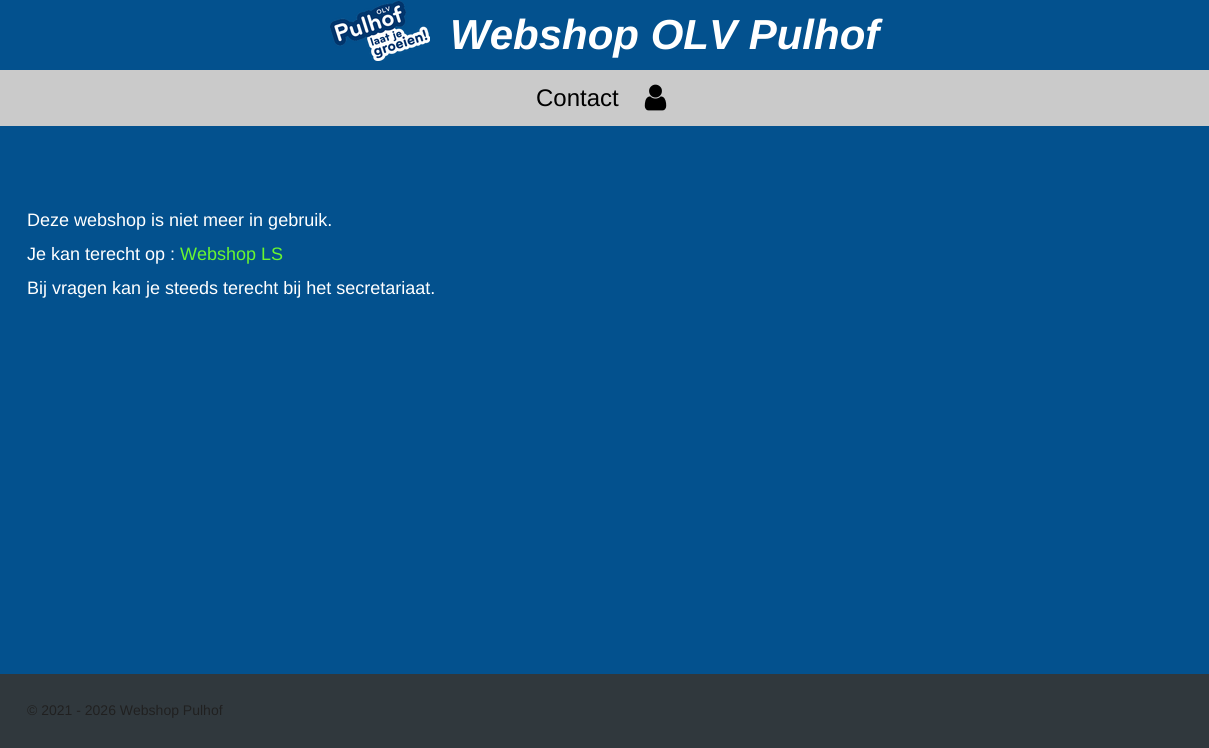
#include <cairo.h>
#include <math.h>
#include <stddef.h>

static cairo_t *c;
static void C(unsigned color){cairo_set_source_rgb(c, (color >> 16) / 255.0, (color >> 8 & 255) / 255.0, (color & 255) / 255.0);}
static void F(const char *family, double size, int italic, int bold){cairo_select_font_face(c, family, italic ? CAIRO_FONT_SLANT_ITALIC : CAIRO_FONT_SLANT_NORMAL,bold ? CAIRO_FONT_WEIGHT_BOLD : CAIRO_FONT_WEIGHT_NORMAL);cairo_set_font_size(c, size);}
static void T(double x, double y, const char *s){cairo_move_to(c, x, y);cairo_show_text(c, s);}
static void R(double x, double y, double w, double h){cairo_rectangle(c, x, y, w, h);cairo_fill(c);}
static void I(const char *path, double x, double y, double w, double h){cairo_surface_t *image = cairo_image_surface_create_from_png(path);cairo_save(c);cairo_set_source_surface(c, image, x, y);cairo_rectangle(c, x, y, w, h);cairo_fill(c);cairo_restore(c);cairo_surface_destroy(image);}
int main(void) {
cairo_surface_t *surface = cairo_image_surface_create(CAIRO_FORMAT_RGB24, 1209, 748);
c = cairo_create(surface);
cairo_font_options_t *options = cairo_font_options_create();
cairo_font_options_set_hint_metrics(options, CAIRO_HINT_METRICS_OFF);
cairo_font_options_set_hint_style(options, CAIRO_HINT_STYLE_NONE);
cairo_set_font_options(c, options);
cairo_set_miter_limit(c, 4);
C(0x03518e);
cairo_paint(c);
I("1.png",330,1,100,60);
F("Liberation Sans",42,1,1);
C(0xffffff);
T(450,49,"Webshop OLV Pulhof");
C(0xcacaca);
R(0,70,1209,56);
F("Liberation Sans",24,0,0);
C(0x000000);
T(536,106,"Contact");
I("2.png",644,84,23,27);
F("Liberation Sans",18,0,0);
C(0xffffff);
T(27,226,"Deze webshop is niet meer in gebruik.");
T(27,260,"Je kan terecht op :");
C(0x69f62f);
T(180,260,"Webshop LS");
C(0xffffff);
T(27,294,"Bij vragen kan je steeds terecht bij het secretariaat.");
C(0x30383d);
R(0,674,1209,74);
F("Liberation Sans",14,0,0);
C(0x202020);
T(27,715,"© 2021 - 2026 Webshop Pulhof");
cairo_surface_write_to_png(surface, "o.png");
cairo_font_options_destroy(options);
cairo_destroy(c);
cairo_surface_destroy(surface);
return 0;
}
